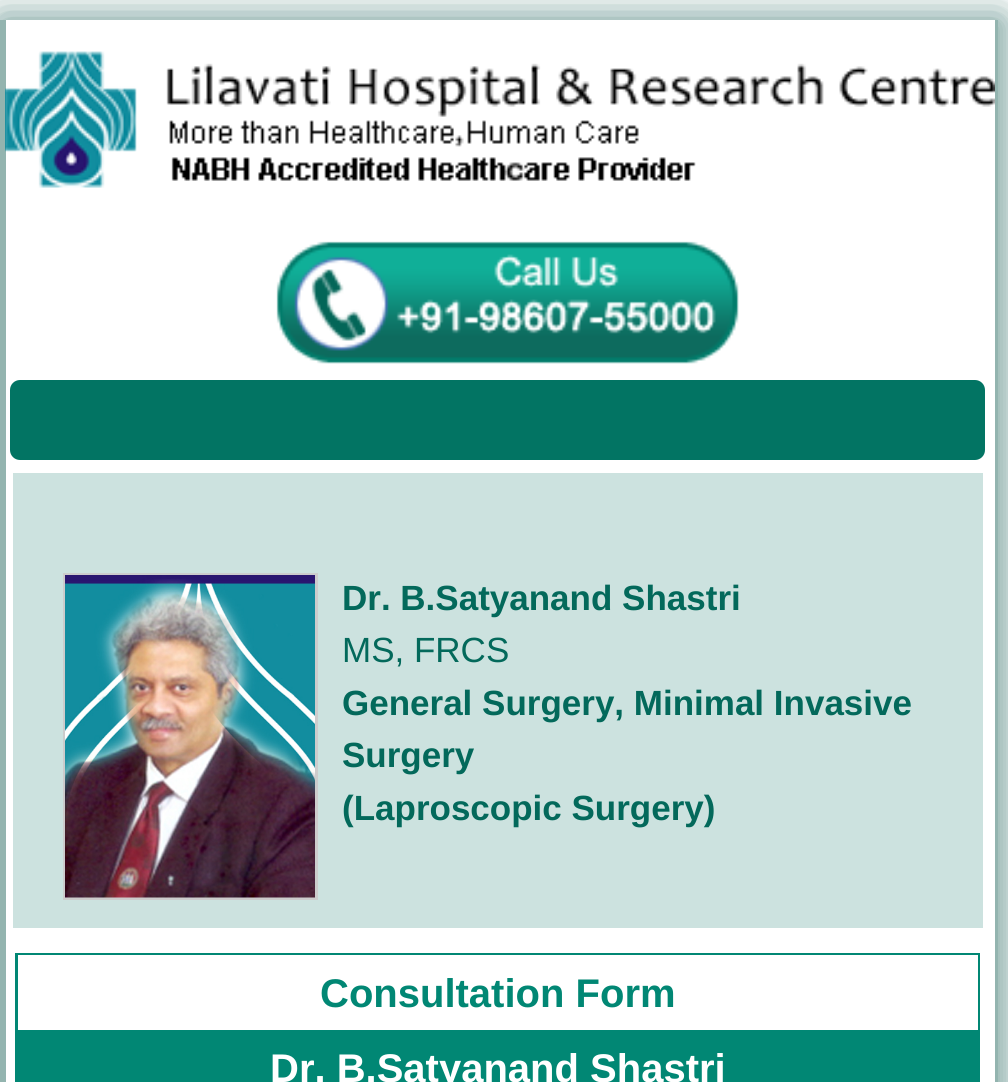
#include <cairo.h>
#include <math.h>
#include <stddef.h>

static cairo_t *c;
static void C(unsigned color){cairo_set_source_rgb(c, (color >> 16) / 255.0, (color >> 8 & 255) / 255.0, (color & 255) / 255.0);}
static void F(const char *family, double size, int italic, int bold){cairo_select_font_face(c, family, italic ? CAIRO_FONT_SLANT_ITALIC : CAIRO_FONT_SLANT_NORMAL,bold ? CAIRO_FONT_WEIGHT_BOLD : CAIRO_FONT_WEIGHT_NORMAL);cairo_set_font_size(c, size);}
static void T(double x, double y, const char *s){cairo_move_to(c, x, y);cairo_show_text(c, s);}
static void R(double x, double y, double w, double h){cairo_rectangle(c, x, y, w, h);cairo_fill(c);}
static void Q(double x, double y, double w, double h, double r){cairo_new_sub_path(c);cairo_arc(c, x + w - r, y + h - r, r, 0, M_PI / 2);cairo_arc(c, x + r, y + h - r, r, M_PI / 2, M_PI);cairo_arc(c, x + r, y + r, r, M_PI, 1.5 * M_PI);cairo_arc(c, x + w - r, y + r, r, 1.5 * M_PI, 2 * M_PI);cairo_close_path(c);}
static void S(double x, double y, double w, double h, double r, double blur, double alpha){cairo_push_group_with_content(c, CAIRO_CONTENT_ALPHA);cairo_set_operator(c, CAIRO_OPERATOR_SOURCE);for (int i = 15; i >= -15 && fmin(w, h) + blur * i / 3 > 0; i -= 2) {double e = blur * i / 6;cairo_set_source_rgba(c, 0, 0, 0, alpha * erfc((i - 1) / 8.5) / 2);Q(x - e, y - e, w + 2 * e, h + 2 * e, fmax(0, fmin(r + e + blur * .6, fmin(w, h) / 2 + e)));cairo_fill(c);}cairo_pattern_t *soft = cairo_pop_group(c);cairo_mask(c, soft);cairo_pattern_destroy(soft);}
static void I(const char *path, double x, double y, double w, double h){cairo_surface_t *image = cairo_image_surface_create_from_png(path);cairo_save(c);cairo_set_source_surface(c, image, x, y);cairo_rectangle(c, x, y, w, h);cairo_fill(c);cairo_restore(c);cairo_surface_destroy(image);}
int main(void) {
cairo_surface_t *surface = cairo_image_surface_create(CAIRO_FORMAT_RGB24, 1008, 1082);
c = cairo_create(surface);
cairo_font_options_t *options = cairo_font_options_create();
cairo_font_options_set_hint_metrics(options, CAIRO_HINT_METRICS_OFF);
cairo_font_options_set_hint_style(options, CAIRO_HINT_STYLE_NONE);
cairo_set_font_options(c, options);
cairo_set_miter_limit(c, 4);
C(0xffffff);
cairo_paint(c);
C(0x93b4af);
S(0,20,1000,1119,0,19,1);
C(0x93b4af);
R(0,20,3,1062);
C(0x93b4af);
S(3,20,1000,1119,0,19,1);
C(0xffffff);
R(6,20,989,1062);
C(0x93b4af);
R(995,20,3,1062);
R(3,20,3,1062);
I("1.png",5,51,990,137);
I("2.png",276,241,463,123);
C(0x027463);
Q(11.5,381.5,972,77,8.5);
cairo_fill_preserve(c);
cairo_set_line_width(c,3);
cairo_stroke(c);
C(0xcce2df);
R(13,473,970,455);
cairo_rectangle(c,64.5,574.5,252,324);
C(0xcccccc);
cairo_stroke(c);
I("3.png",65,575,250,323);
F("Liberation Sans",35,0,1);
C(0x03695b);
T(342,610,"Dr. B.Satyanand Shastri");
F("Liberation Sans",35,0,0);
T(342,662,"MS, FRCS");
F("Liberation Sans",35,0,1);
T(342,715,"General Surgery, Minimal Invasive");
T(342,767,"Surgery");
T(342,820,"(Laproscopic Surgery)");
C(0x018774);
R(15,953,965,129);
C(0xffffff);
R(18,955,960,75);
F("Liberation Sans",40,0,1);
C(0x018774);
T(320,1007,"Consultation Form");
C(0xffffff);
T(270,1082,"Dr. B.Satyanand Shastri");
cairo_surface_write_to_png(surface, "o.png");
cairo_font_options_destroy(options);
cairo_destroy(c);
cairo_surface_destroy(surface);
return 0;
}
